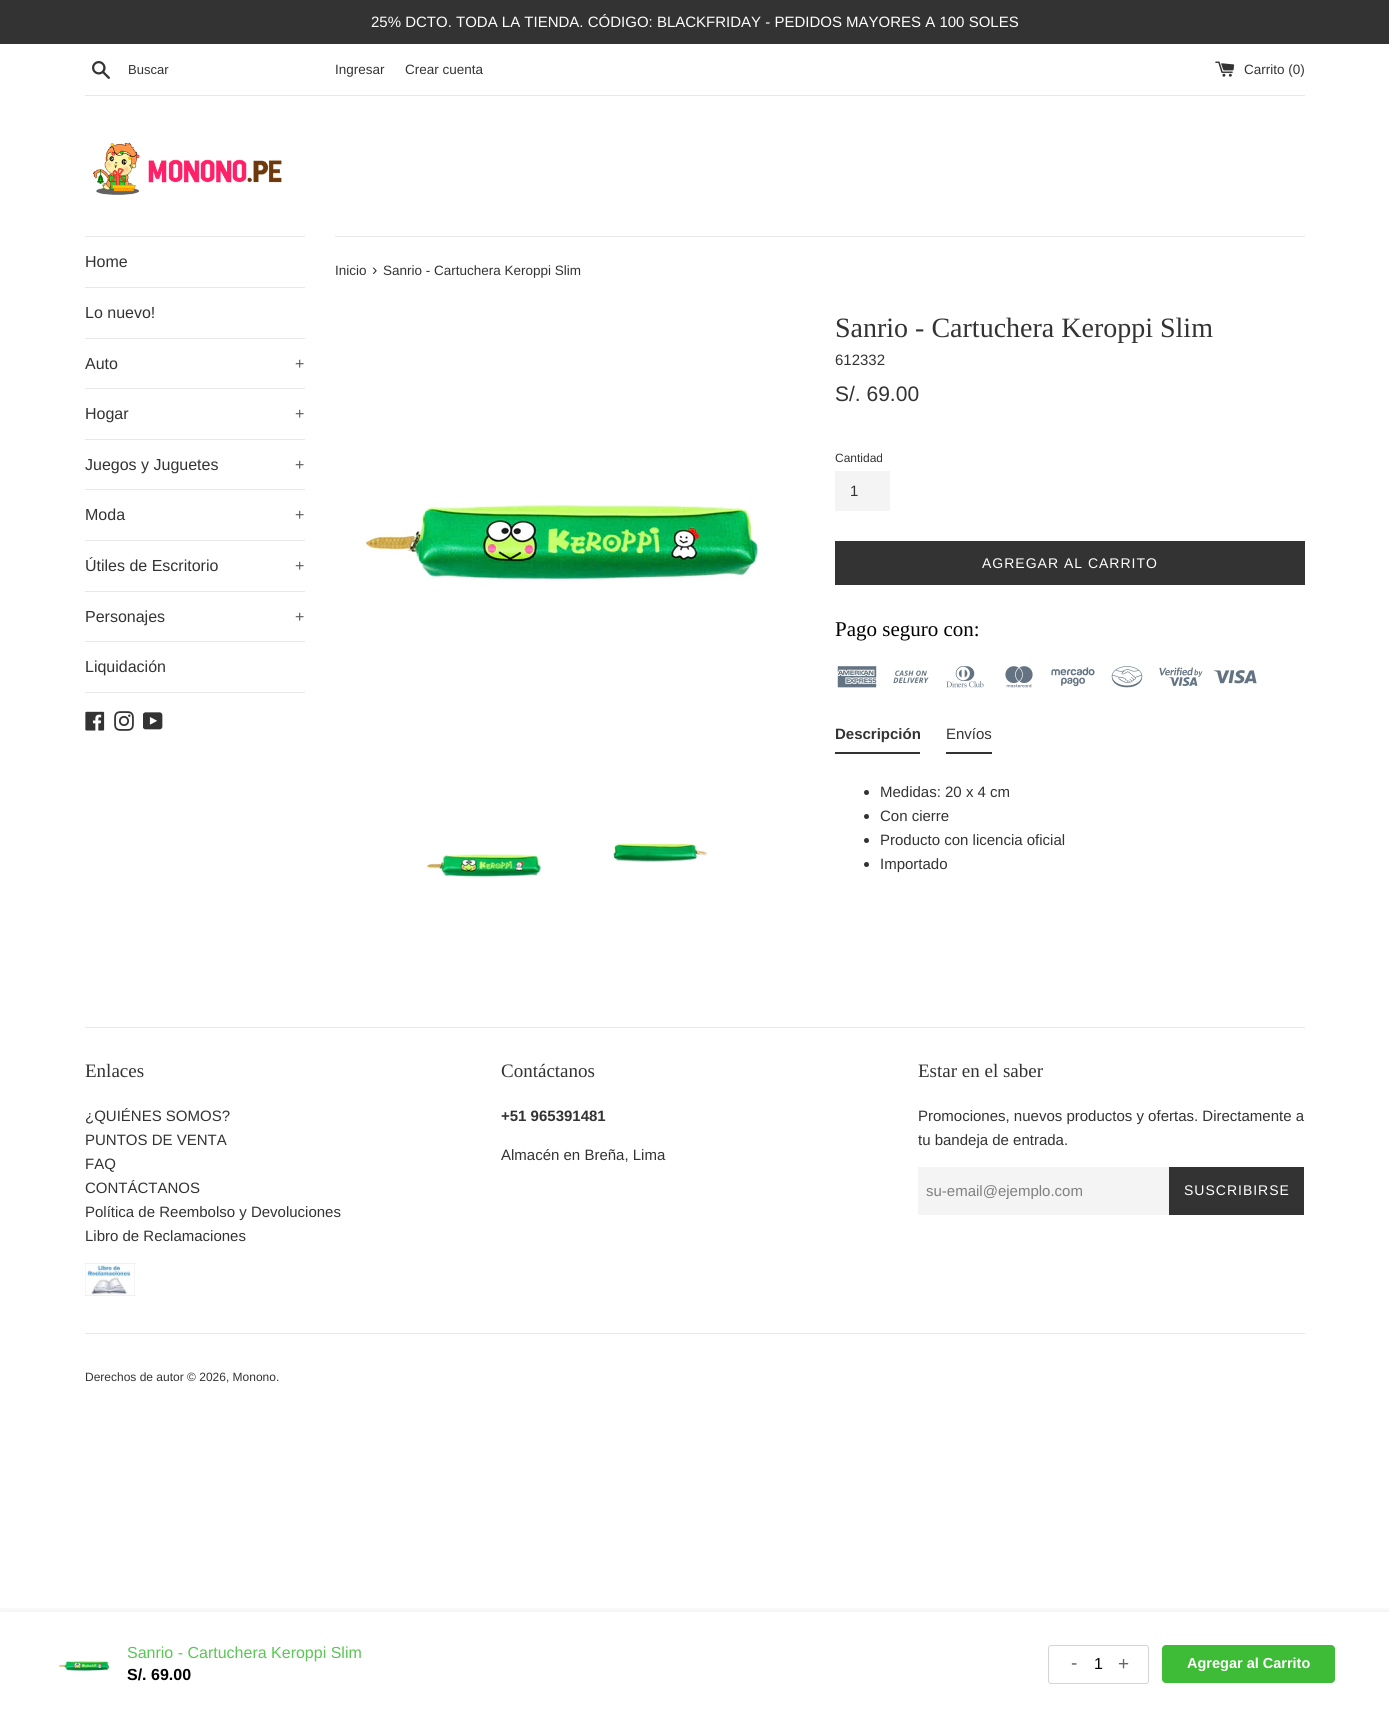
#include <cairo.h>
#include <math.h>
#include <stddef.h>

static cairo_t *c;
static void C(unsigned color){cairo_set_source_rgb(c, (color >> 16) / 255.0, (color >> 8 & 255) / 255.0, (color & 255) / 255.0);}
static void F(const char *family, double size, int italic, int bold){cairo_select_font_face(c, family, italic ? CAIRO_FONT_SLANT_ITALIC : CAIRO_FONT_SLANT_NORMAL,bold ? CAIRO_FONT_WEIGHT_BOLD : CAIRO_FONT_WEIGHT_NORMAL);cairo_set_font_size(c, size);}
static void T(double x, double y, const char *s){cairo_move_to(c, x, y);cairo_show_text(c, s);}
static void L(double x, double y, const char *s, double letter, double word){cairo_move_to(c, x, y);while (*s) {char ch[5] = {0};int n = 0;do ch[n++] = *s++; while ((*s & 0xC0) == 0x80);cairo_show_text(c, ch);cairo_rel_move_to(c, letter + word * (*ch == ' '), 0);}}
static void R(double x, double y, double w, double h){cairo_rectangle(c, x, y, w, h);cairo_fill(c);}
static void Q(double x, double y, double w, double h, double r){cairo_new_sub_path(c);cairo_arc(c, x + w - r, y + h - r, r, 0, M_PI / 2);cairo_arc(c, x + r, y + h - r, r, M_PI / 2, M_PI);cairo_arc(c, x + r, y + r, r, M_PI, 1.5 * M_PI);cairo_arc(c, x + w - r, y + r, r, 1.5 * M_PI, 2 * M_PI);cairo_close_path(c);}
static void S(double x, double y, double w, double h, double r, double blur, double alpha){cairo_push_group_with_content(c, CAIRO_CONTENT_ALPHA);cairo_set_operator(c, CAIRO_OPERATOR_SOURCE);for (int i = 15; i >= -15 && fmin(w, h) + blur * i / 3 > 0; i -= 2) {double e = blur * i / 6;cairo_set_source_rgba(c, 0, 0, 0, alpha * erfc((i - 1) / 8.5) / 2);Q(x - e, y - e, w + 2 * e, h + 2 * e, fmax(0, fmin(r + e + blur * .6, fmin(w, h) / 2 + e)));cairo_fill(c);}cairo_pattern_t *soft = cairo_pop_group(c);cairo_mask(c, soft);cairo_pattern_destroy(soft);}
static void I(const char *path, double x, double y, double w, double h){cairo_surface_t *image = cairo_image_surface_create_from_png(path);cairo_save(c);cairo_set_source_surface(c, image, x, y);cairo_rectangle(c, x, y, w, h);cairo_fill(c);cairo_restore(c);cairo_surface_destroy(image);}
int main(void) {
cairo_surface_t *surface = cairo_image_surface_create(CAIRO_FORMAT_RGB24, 1389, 1716);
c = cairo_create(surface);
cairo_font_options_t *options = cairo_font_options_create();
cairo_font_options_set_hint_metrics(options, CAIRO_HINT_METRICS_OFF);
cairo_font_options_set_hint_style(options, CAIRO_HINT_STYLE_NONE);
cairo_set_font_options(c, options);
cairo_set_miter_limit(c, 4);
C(0xffffff);
cairo_paint(c);
C(0x333333);
R(0,0,1389,44);
F("Liberation Sans",15,0,0);
C(0xffffff);
T(371,27,"25% DCTO. TODA LA TIENDA. CÓDIGO: BLACKFRIDAY - PEDIDOS MAYORES A 100 SOLES");
I("1.png",92,61,18,18);
F("Liberation Sans",13,0,0);
C(0x333333);
T(128,74,"Buscar");
F("Liberation Sans",13.5,0,0);
T(335,74,"Ingresar");
T(405,74,"Crear cuenta");
I("2.png",1215,61,20,16);
T(1244,74,"Carrito (0)");
C(0xe8e8e8);
R(85,95,1220,1);
I("3.png",92,142,190,53);
R(85,236,220,1);
R(85,287,220,1);
F("Liberation Sans",16,0,0);
C(0x333333);
T(85,267,"Home");
C(0xe8e8e8);
R(85,338,220,1);
C(0x333333);
T(85,318,"Lo nuevo!");
C(0xe8e8e8);
R(85,388,220,1);
C(0x333333);
T(85,369,"Auto");
C(0x5c5c5c);
T(295,369,"+");
C(0xe8e8e8);
R(85,439,220,1);
C(0x333333);
T(85,419,"Hogar");
C(0x5c5c5c);
T(295,419,"+");
C(0xe8e8e8);
R(85,489,220,1);
C(0x333333);
T(85,470,"Juegos y Juguetes");
C(0x5c5c5c);
T(295,470,"+");
C(0xe8e8e8);
R(85,540,220,1);
C(0x333333);
T(85,520,"Moda");
C(0x5c5c5c);
T(295,520,"+");
C(0xe8e8e8);
R(85,591,220,1);
C(0x333333);
T(85,571,"Útiles de Escritorio");
C(0x5c5c5c);
T(295,571,"+");
C(0xe8e8e8);
R(85,641,220,1);
C(0x333333);
T(85,622,"Personajes");
C(0x5c5c5c);
T(295,622,"+");
C(0xe8e8e8);
R(85,692,220,1);
C(0x333333);
T(85,672,"Liquidación");
I("4.png",85,711,20,20);
I("5.png",114,711,20,20);
I("6.png",143,712,20,18);
C(0xe8e8e8);
R(335,236,970,1);
F("Liberation Sans",13.5,0,0);
C(0x333333);
T(335,275,"Inicio");
F("Liberation Sans",16,0,0);
T(372,275,"›");
F("Liberation Sans",13.5,0,0);
T(383,275,"Sanrio - Cartuchera Keroppi Slim");
I("7.png",364,501,395,80);
I("8.png",425,854,117,25);
I("9.png",612,843,96,19);
F("Liberation Serif",28,0,0);
T(835,337,"Sanrio - Cartuchera Keroppi Slim");
F("Liberation Sans",15,0,0);
T(835,365,"612332");
F("Liberation Sans",21,0,0);
T(835,401,"S/. 69.00");
F("Liberation Sans",12,0,0);
T(835,462,"Cantidad");
C(0xf4f4f4);
R(835,471,55,40);
F("Liberation Sans",15,0,0);
C(0x333333);
T(850,496,"1");
R(835,541,470,44);
F("Liberation Sans",14,0,0);
C(0xffffff);
L(982,568,"AGREGAR AL CARRITO",1,0);
F("Liberation Serif",21,0,0);
C(0x000000);
T(835,636,"Pago seguro con:");
I("10.png",837,666,40,22);
I("11.png",893,670,36,13);
I("12.png",946,666,38,22);
I("13.png",1005,666,28,22);
I("14.png",1051,667,44,20);
I("15.png",1111,666,32,22);
I("16.png",1159,667,44,19);
I("17.png",1213,670,44,14);
C(0x333333);
R(835,752,85,2);
F("Liberation Sans",15,0,1);
T(835,739,"Descripción");
R(946,752,46,2);
F("Liberation Sans",15,0,0);
T(946,739,"Envíos");
cairo_new_path(c);
cairo_arc(c,866.5,792.5,2.5,0,2 * M_PI);
cairo_fill(c);
T(880,797,"Medidas: 20 x 4 cm");
cairo_new_path(c);
cairo_arc(c,866.5,816.5,2.5,0,2 * M_PI);
cairo_fill(c);
T(880,821,"Con cierre");
cairo_new_path(c);
cairo_arc(c,866.5,840.5,2.5,0,2 * M_PI);
cairo_fill(c);
T(880,845,"Producto con licencia oficial");
cairo_new_path(c);
cairo_arc(c,866.5,864.5,2.5,0,2 * M_PI);
cairo_fill(c);
T(880,869,"Importado");
C(0xe8e8e8);
R(85,1027,1220,1);
F("Liberation Serif",19,0,0);
C(0x333333);
T(85,1077,"Enlaces");
F("Liberation Sans",15,0,0);
T(85,1121,"¿QUIÉNES SOMOS?");
T(85,1145,"PUNTOS DE VENTA");
T(85,1169,"FAQ");
T(85,1193,"CONTÁCTANOS");
T(85,1217,"Política de Reembolso y Devoluciones");
T(85,1241,"Libro de Reclamaciones");
I("18.png",85,1263,50,33);
F("Liberation Serif",19,0,0);
T(501,1077,"Contáctanos");
F("Liberation Sans",15,0,1);
T(501,1121,"+51 965391481");
F("Liberation Sans",15,0,0);
T(501,1160,"Almacén en Breña, Lima");
F("Liberation Serif",19,0,0);
T(918,1077,"Estar en el saber");
F("Liberation Sans",15,0,0);
T(918,1121,"Promociones, nuevos productos y ofertas. Directamente a");
T(918,1145,"tu bandeja de entrada.");
C(0xf4f4f4);
R(918,1167,251,48);
cairo_save(c);
cairo_rectangle(c,926,1182,235,17);
cairo_clip(c);
C(0x808080);
T(926,1196,"su-email@ejemplo.com");
cairo_restore(c);
C(0x333333);
R(1169,1167,135,48);
F("Liberation Sans",14,0,0);
C(0xffffff);
L(1184,1195,"SUSCRIBIRSE",1,0);
C(0xe8e8e8);
R(85,1333,1220,1);
F("Liberation Sans",12,0,0);
C(0x333333);
T(85,1381,"Derechos de autor © 2026, Monono.");
cairo_save(c);
cairo_rectangle(c,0,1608,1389,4);
cairo_clip(c);
C(0x000000);
S(0,1612,1389,104,0,5,.09);
cairo_restore(c);
I("19.png",58,1660,52,11);
F("Liberation Sans",16,0,0);
C(0x5bc555);
T(127,1658,"Sanrio - Cartuchera Keroppi Slim");
F("Liberation Sans",16,0,1);
C(0x000000);
T(127,1680,"S/. 69.00");
Q(1048.5,1645.5,100,38,2.5);
C(0xd5d5d5);
cairo_set_line_width(c,1);
cairo_stroke(c);
F("Liberation Sans",19,0,0);
C(0x666666);
T(1071,1669,"-");
F("Liberation Sans",16,0,0);
C(0x000000);
T(1094,1669,"1");
F("Liberation Sans",19,0,0);
C(0x666666);
T(1118,1670,"+");
C(0x3ebb37);
Q(1162,1645,173,38,4);
cairo_fill(c);
F("Liberation Sans",14.5,0,1);
C(0xffffff);
T(1187,1668,"Agregar al Carrito");
cairo_surface_write_to_png(surface, "o.png");
cairo_font_options_destroy(options);
cairo_destroy(c);
cairo_surface_destroy(surface);
return 0;
}
